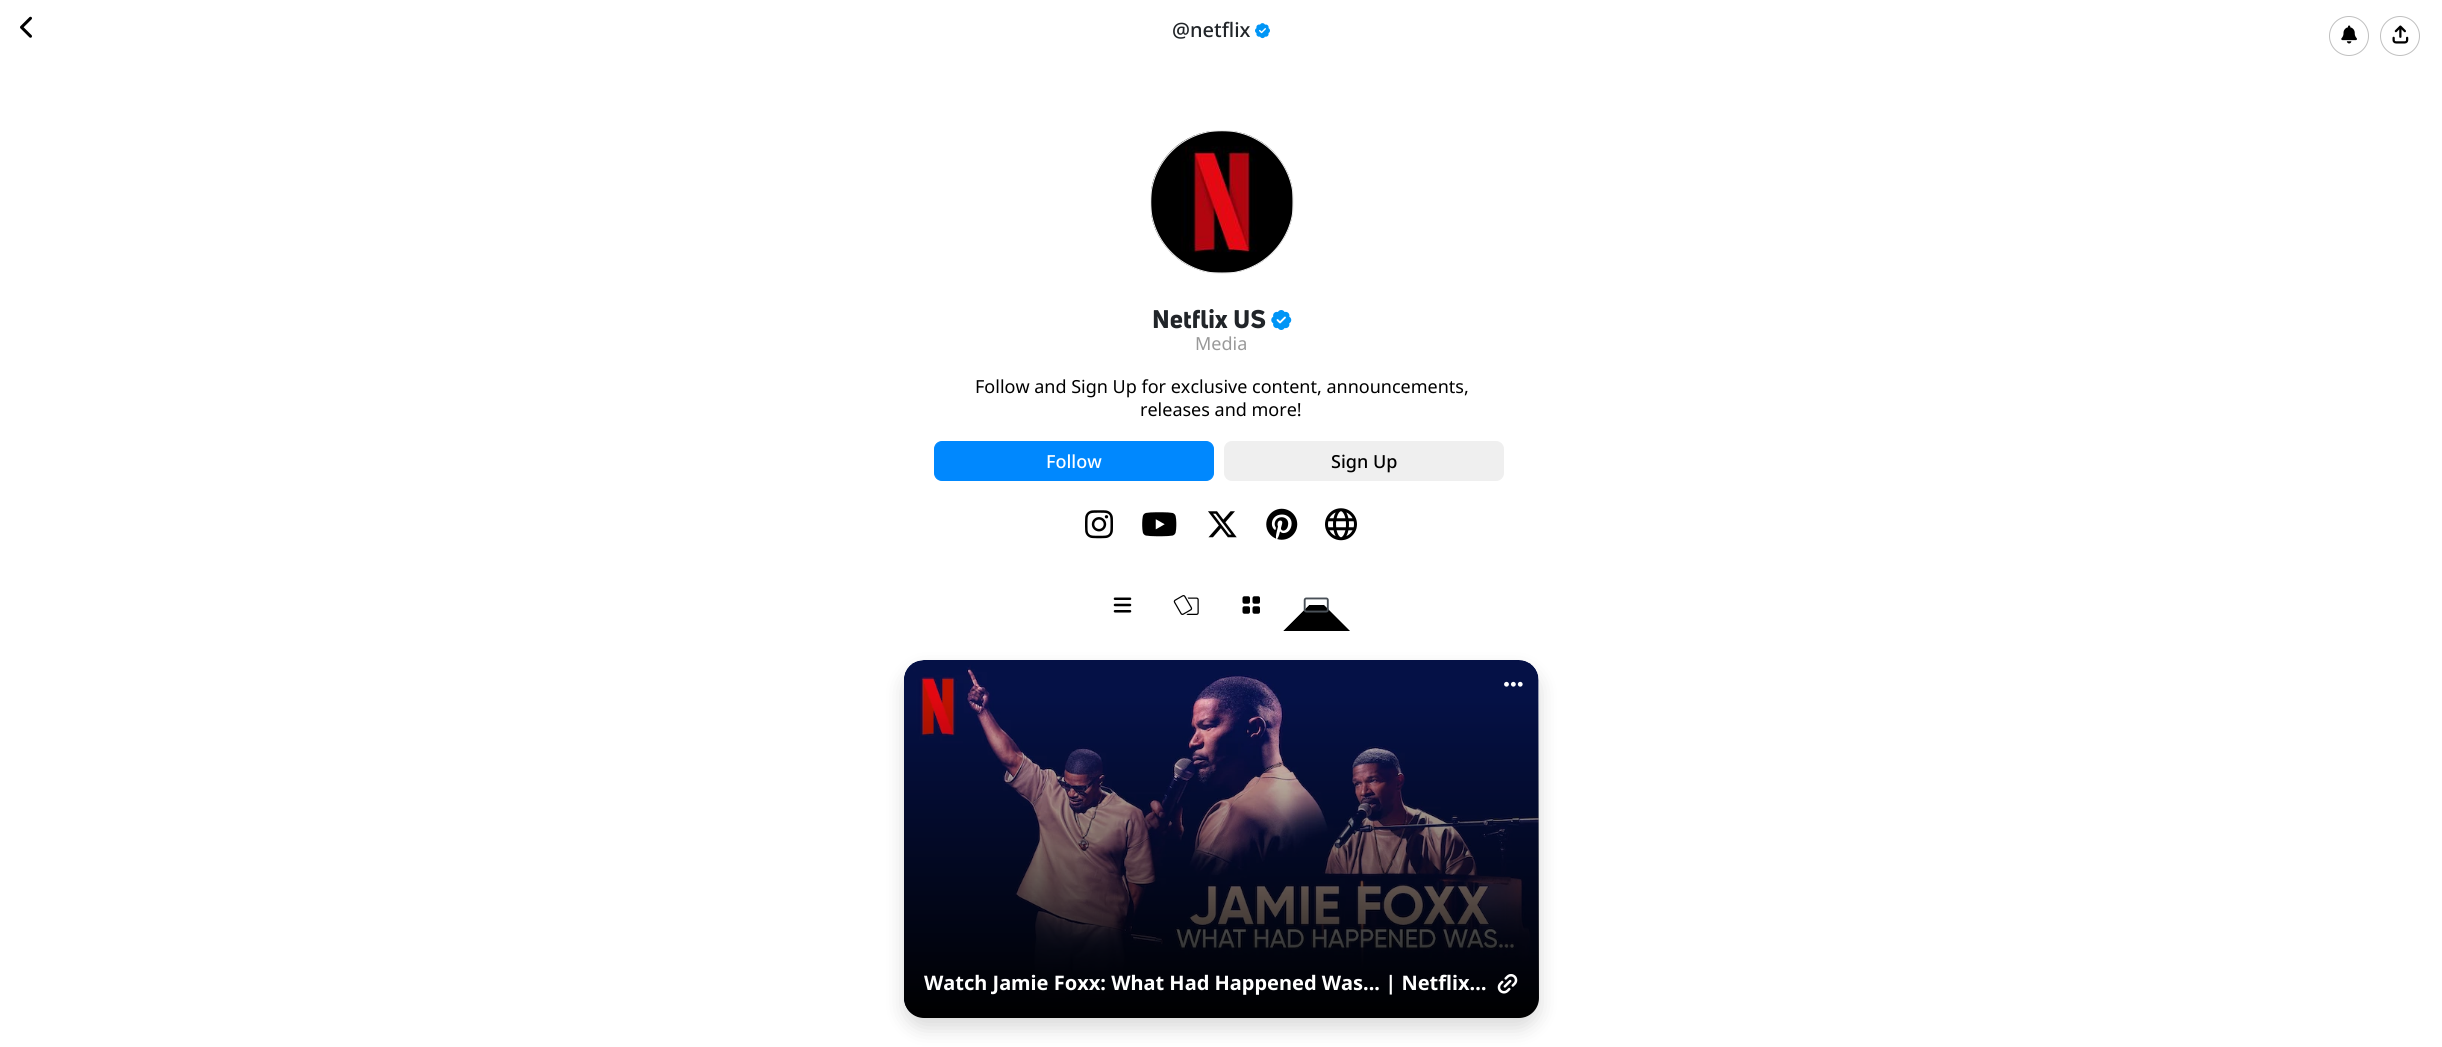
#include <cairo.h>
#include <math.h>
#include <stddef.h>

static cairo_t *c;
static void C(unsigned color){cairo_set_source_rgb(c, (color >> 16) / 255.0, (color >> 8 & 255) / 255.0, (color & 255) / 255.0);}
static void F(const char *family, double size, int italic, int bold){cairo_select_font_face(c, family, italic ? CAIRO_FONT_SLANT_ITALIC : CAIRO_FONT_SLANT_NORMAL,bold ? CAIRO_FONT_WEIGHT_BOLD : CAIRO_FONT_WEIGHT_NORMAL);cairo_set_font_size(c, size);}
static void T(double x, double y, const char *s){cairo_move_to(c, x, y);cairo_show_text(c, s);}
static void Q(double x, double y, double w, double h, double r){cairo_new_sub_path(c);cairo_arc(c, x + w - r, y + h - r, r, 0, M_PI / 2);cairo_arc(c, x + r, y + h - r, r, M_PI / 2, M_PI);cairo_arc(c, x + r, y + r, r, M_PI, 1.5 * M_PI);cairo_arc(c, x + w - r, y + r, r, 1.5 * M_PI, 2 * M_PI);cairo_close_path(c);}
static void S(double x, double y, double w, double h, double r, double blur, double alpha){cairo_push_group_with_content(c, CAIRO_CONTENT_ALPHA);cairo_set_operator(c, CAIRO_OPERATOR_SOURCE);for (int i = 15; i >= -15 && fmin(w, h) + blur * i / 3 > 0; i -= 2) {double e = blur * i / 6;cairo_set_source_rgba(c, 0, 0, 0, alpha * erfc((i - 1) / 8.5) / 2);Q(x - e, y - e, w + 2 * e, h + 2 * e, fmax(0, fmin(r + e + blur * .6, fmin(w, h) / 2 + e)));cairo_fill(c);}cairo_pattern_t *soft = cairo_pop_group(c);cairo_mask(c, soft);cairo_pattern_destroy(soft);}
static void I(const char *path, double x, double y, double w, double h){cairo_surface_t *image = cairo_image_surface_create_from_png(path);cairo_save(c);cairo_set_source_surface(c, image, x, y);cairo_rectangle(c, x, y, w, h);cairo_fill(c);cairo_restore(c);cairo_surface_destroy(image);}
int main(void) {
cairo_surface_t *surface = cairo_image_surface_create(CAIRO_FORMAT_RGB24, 2442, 1047);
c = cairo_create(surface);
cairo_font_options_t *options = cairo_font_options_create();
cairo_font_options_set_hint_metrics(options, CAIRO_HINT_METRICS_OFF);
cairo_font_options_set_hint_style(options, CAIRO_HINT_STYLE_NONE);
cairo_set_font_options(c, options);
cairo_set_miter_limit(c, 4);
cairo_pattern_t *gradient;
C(0xffffff);
cairo_paint(c);
I("1.png",20,16,12,22);
F("Noto Sans Medium",20,0,0);
C(0x212529);
T(1172,37,"@netflix");
I("2.png",1255,23,15,16);
cairo_arc(c,2349,36,19.5,0,2 * M_PI);
C(0xc0c0c0);
cairo_set_line_width(c,1);
cairo_stroke(c);
I("3.png",2341,25,16,19);
cairo_arc(c,2400,36,19.5,0,2 * M_PI);
cairo_stroke(c);
I("4.png",2392,25,17,19);
I("5.png",1151,131,142,142);
cairo_arc(c,1222,202,71.5,0,2 * M_PI);
C(0xefefef);
cairo_stroke(c);
F("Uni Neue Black",25,0,0);
C(0x212529);
T(1152,328,"Netflix US");
I("6.png",1271,310,21,20);
F("Noto Sans",18,0,0);
C(0x999999);
T(1195,350,"Media");
C(0x000000);
T(975,393,"Follow and Sign Up for exclusive content, announcements,");
T(1140,416,"releases and more!");
C(0x0088fe);
Q(934.5,441.5,279,39,7.5);
cairo_fill_preserve(c);
cairo_stroke(c);
F("Noto Sans Medium",18,0,0);
C(0xffffff);
T(1046,468,"Follow");
C(0xefefef);
Q(1224.5,441.5,279,39,7.5);
cairo_fill_preserve(c);
cairo_stroke(c);
C(0x000000);
T(1331,468,"Sign Up");
I("7.png",1085,510,28,29);
I("8.png",1142,512,35,25);
I("9.png",1208,511,29,27);
I("10.png",1266,508,32,32);
I("11.png",1325,508,32,33);
I("12.png",1113,597,19,16);
I("13.png",1173,595,26,20);
I("14.png",1242,596,18,18);
cairo_new_path(c);
cairo_move_to(c,1350,631);
cairo_line_to(c,1324,605);
cairo_line_to(c,1309,605);
cairo_line_to(c,1283,631);
cairo_close_path(c);
cairo_fill(c);
C(0xffffff);
cairo_new_path(c);
cairo_move_to(c,1282,584);
cairo_line_to(c,1285,581);
cairo_line_to(c,1309,605);
cairo_line_to(c,1283,631);
cairo_close_path(c);
cairo_fill(c);
I("15.png",1303,597,26,16);
C(0x000000);
S(904,670,635,358,20,10,.15);
C(0xffffff);
Q(904,660,635,358,20);
cairo_fill(c);
I("16.png",904,660,635,358);
I("17.png",1504,681,19,6);
gradient = cairo_pattern_create_linear(1221,696,1221,1018);
cairo_pattern_add_color_stop_rgba(gradient,0,0,0,0,0);
cairo_pattern_add_color_stop_rgba(gradient,1,0,0,0,1);
cairo_set_source(c,gradient);
cairo_pattern_destroy(gradient);
cairo_new_path(c);
cairo_move_to(c,904,696);
cairo_line_to(c,1539,696);
cairo_line_to(c,1539,998);
cairo_curve_to(c,1539,1009,1530,1018,1519,1018);
cairo_line_to(c,924,1018);
cairo_curve_to(c,913,1018,904,1009,904,998);
cairo_close_path(c);
cairo_fill(c);
I("18.png",1497,974,21,20);
F("Noto Sans",20,0,1);
C(0xffffff);
T(924,990,"Watch Jamie Foxx: What Had Happened Was... | Netflix…");
cairo_surface_write_to_png(surface, "o.png");
cairo_font_options_destroy(options);
cairo_destroy(c);
cairo_surface_destroy(surface);
return 0;
}
